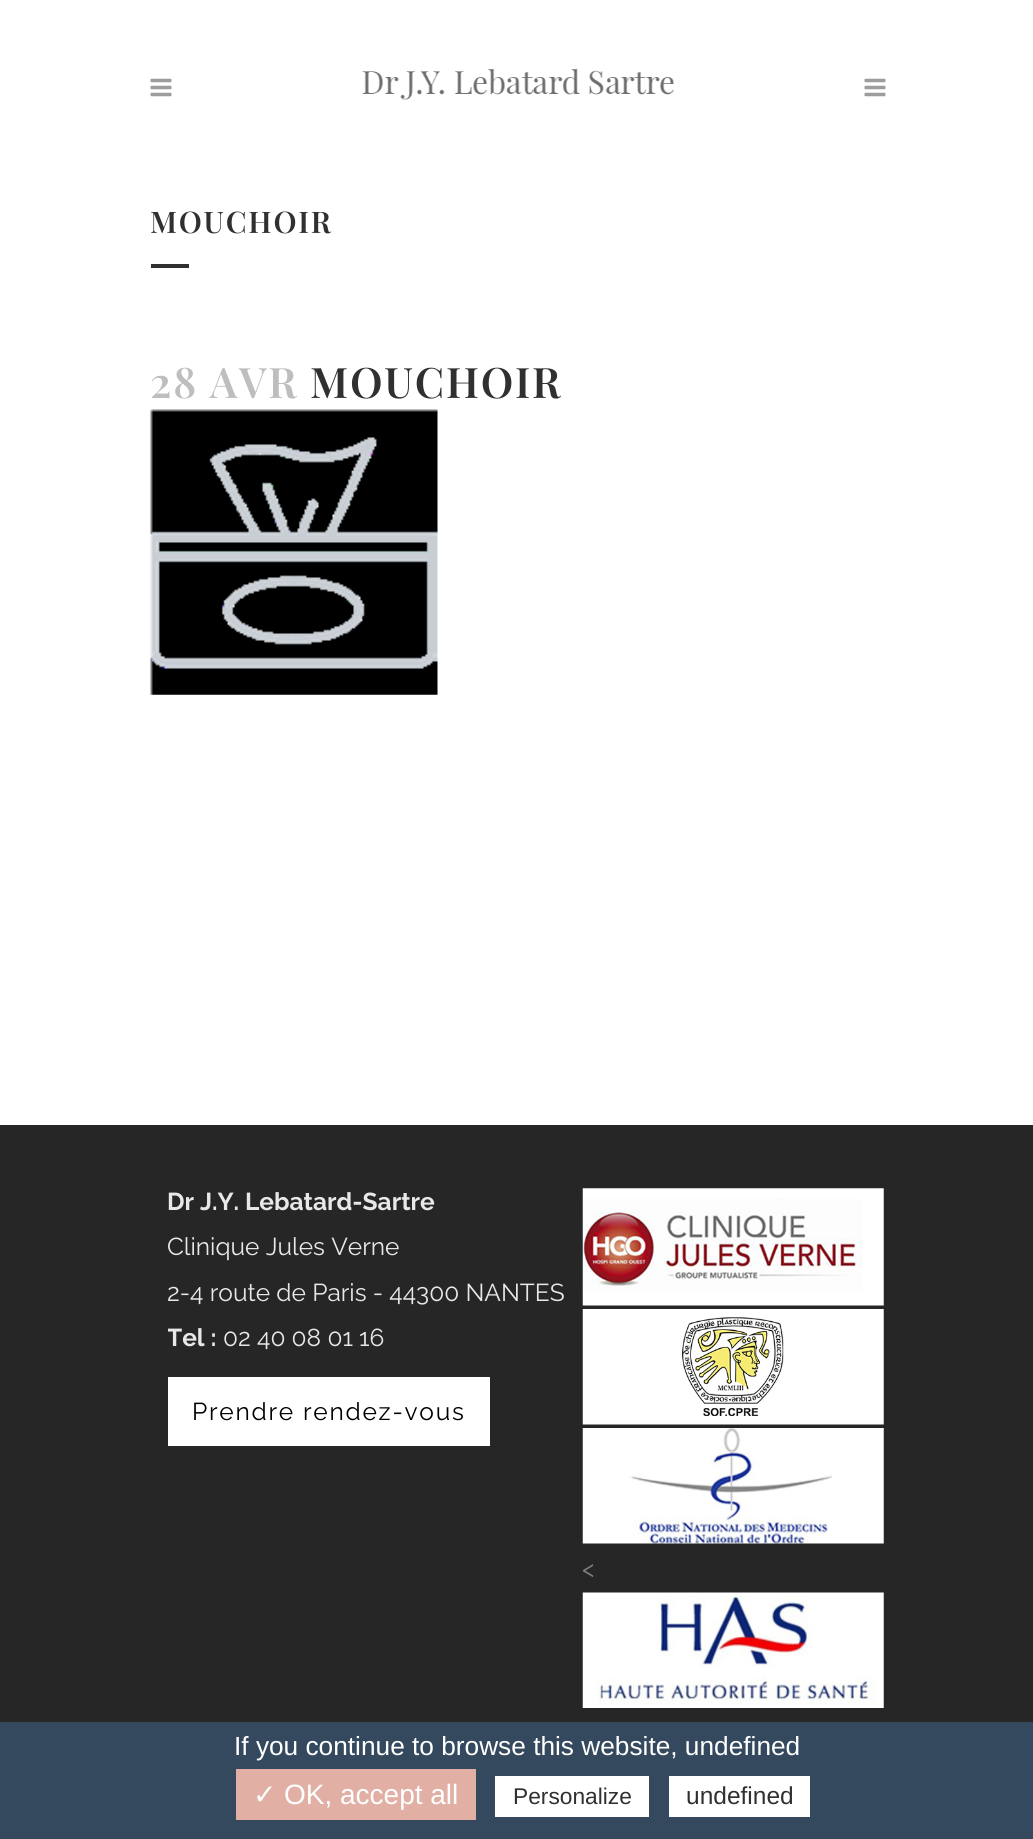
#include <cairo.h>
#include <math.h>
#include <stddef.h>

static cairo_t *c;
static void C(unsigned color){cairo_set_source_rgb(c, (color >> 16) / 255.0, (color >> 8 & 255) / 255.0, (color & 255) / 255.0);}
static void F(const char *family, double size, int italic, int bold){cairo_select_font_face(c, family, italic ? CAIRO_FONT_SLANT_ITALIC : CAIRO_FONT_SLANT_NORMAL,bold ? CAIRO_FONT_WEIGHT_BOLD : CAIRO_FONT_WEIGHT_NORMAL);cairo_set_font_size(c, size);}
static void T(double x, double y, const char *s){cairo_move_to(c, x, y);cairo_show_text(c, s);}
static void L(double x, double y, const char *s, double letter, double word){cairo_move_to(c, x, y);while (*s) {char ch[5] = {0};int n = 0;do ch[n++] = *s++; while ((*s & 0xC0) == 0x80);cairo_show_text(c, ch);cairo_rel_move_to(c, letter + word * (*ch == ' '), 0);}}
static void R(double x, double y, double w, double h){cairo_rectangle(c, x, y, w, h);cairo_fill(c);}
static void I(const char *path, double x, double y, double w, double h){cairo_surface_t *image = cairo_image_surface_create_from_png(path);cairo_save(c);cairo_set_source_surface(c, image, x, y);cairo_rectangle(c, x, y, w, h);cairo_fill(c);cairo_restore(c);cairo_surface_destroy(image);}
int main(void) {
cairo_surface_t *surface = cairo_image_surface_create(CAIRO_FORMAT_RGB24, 1033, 1839);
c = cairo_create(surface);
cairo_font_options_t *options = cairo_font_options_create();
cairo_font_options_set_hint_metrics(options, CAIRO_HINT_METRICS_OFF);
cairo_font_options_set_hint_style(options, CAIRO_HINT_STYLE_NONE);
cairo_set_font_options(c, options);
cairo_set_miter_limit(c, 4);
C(0xffffff);
cairo_paint(c);
I("1.png",150,78,22,19);
I("2.png",362,68,312,32);
I("1.png",864,78,22,19);
F("Playfair Display SemiBold",29.75,0,0);
C(0x303030);
L(150,233,"MOUCHOIR",1.75,0);
R(151,264,38,4);
F("Playfair Display SemiBold",42,0,0);
C(0xbebebe);
L(150,398,"28 AVR",1.75,0);
C(0x303030);
L(310,398,"MOUCHOIR",1.75,0);
I("3.png",150,409,288,286);
C(0x262626);
R(0,1125,1033,597);
F("Raleway",24.5,0,1);
C(0xe8e8e8);
T(167,1210,"Dr J.Y. Lebatard-Sartre");
F("Raleway",24.5,0,0);
T(167,1255,"Clinique Jules Verne");
T(167,1301,"2-4 route de Paris - 44300 NANTES");
cairo_save(c);
cairo_rectangle(c,168,1178,397,268);
cairo_clip(c);
F("Raleway",24.5,0,1);
T(167,1346,"Tel :");
cairo_restore(c);
T(223,1346,"02 40 08 01 16");
C(0xffffff);
R(168,1377,322,69);
C(0x000000);
L(192,1420,"Prendre rendez-vous",1.75,0);
I("4.png",582,1188,302,118);
I("5.png",582,1309,302,116);
I("6.png",582,1428,302,116);
C(0x818181);
T(582,1577,"<");
I("7.png",582,1592,302,116);
C(0x34495e);
R(0,1722,1033,117);
F("Liberation Sans",26.25,0,0);
C(0xffffff);
T(234,1755,"If you continue to browse this website, undefined");
C(0xe2afa5);
R(236,1769,240,51);
F("DejaVu Sans",28,0,0);
C(0xffffff);
T(253,1804,"✓");
F("Liberation Sans",28,0,0);
T(284,1804,"OK, accept all");
R(495,1776,154,41);
F("Liberation Sans",22.75,0,0);
C(0x303030);
T(513,1804,"Personalize");
C(0xffffff);
R(669,1776,141,41);
F("Liberation Sans",24.5,0,0);
C(0x303030);
T(686,1804,"undefined");
cairo_surface_write_to_png(surface, "o.png");
cairo_font_options_destroy(options);
cairo_destroy(c);
cairo_surface_destroy(surface);
return 0;
}
